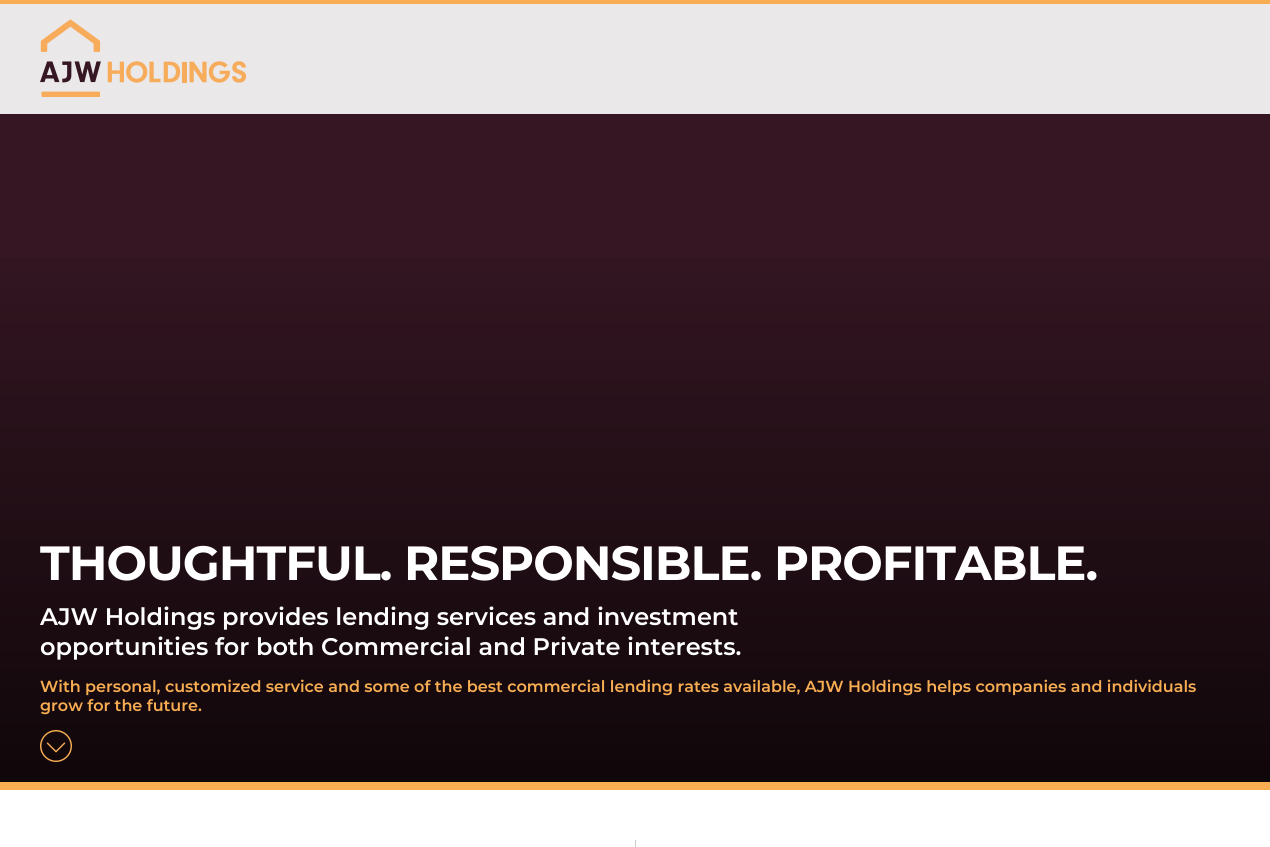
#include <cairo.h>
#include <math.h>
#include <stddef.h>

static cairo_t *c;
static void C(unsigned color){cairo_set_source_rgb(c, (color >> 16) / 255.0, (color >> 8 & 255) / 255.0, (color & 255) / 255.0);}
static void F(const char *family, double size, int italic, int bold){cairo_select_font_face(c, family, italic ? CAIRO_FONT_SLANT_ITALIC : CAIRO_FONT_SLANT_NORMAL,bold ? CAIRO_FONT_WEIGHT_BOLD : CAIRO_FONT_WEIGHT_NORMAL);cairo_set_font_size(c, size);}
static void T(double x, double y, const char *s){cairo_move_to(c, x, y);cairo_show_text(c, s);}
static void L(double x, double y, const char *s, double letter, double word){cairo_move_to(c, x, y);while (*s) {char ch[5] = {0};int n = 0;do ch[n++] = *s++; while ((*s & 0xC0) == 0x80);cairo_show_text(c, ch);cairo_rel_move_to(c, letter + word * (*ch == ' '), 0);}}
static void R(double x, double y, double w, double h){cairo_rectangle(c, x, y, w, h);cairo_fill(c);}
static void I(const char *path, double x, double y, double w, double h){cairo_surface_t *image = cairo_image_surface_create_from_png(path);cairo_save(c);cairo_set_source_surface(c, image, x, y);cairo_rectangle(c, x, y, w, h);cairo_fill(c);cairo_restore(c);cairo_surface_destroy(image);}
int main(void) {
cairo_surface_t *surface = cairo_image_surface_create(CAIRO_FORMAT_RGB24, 1270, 847);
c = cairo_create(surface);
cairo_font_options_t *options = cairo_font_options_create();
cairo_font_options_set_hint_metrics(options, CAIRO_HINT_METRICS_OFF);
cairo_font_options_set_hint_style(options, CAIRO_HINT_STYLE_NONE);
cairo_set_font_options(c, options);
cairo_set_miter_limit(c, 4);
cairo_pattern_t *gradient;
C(0x351622);
cairo_paint(c);
C(0xebe8e9);
R(0,4,1270,110);
C(0xf8ad53);
R(0,0,1270,4);
I("1.png",40,19,207,78);
R(0,782,1270,8);
gradient = cairo_pattern_create_linear(635,235,635,782);
cairo_pattern_add_color_stop_rgba(gradient,0,0.204,0.086,0.133,1);
cairo_pattern_add_color_stop_rgba(gradient,1,0.063,0.027,0.039,1);
cairo_set_source(c,gradient);
cairo_pattern_destroy(gradient);
R(0,258,1270,524);
F("Montserrat",48,0,1);
C(0xffffff);
L(40,580,"THOUGHTFUL. RESPONSIBLE. PROFITABLE.",-1,0);
F("Montserrat SemiBold",24,0,0);
T(40,625,"AJW Holdings provides lending services and investment");
T(40,655,"opportunities for both Commercial and Private interests.");
F("Montserrat SemiBold",16,0,0);
C(0xf8ad53);
T(40,692,"With personal, customized service and some of the best commercial lending rates available, AJW Holdings helps companies and individuals");
T(40,711,"grow for the future.");
I("2.png",40,730,32,32);
C(0xffffff);
R(0,790,1270,57);
C(0xd0cbc2);
R(635,840,1,7);
cairo_surface_write_to_png(surface, "o.png");
cairo_font_options_destroy(options);
cairo_destroy(c);
cairo_surface_destroy(surface);
return 0;
}
